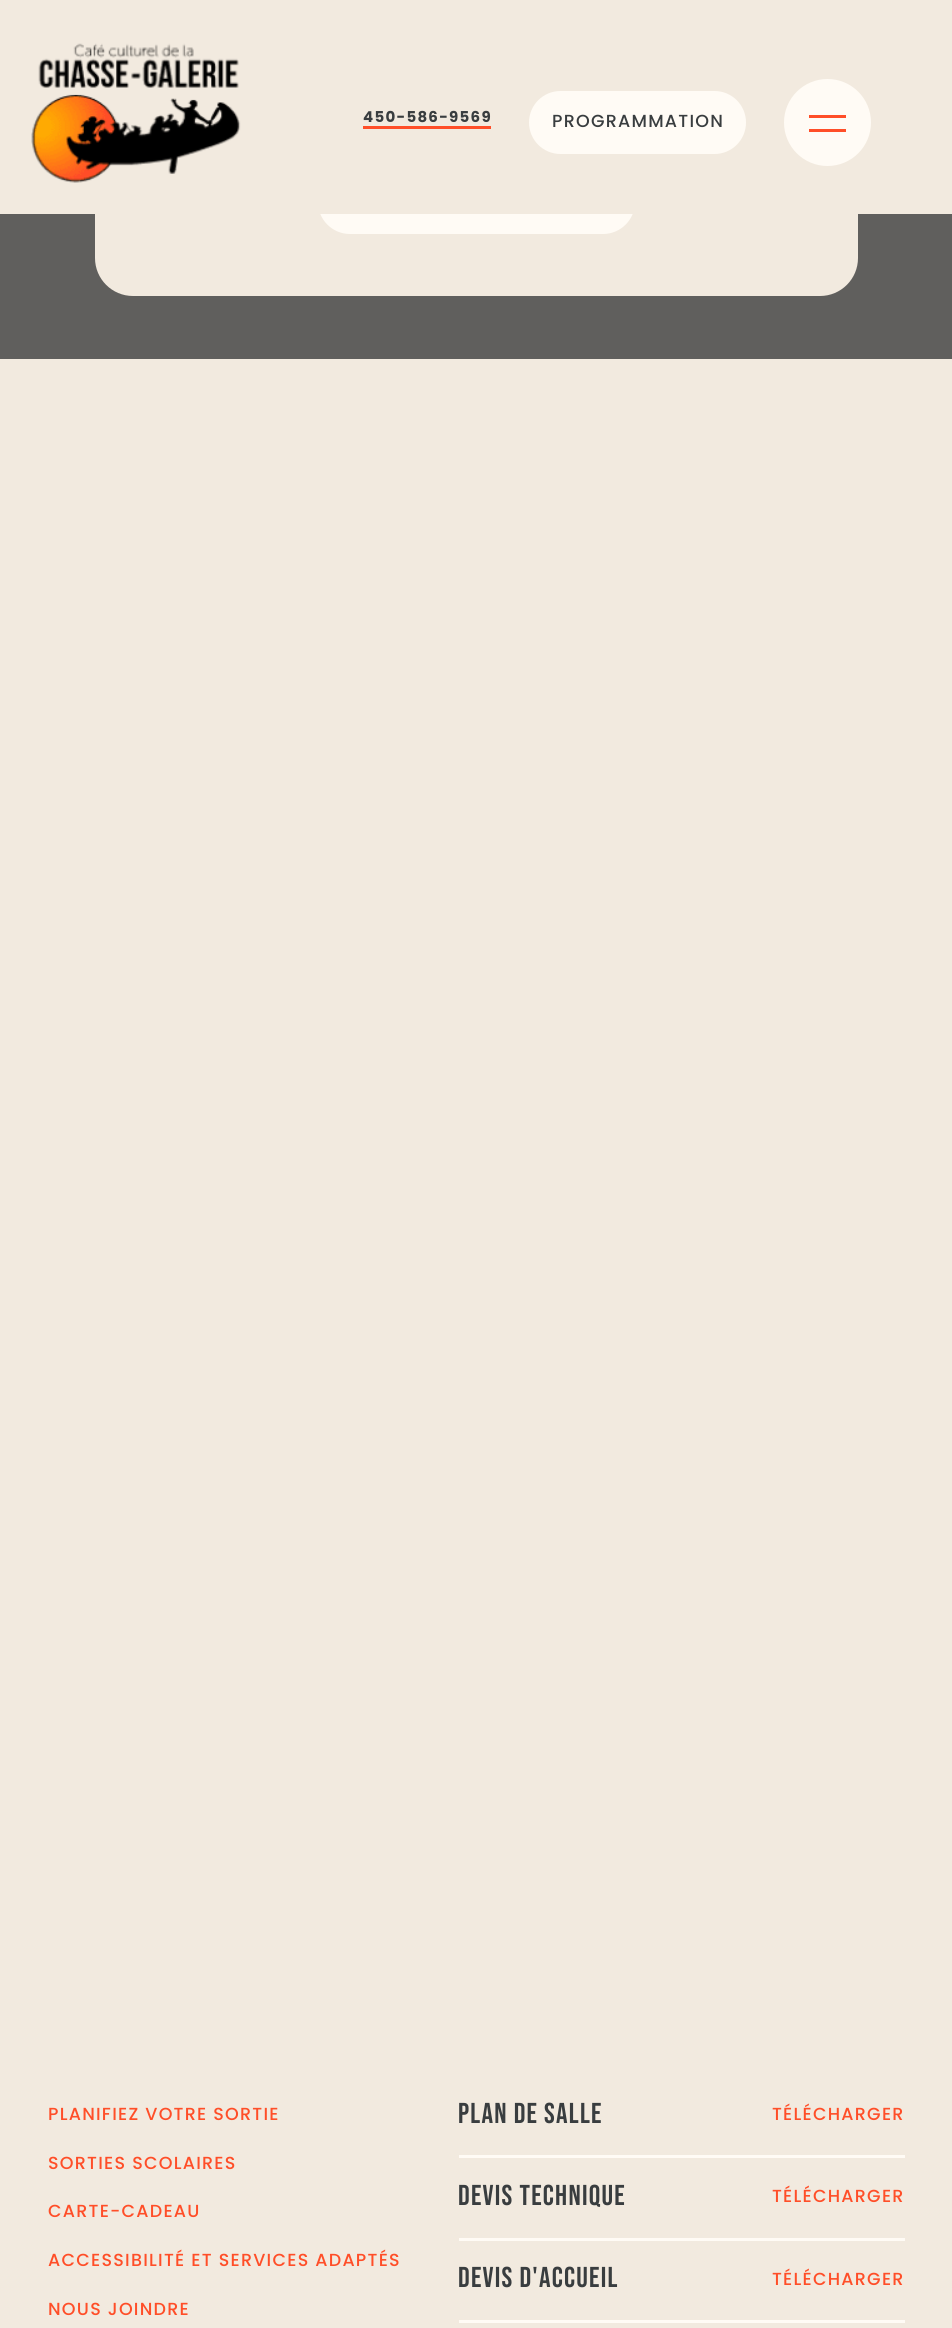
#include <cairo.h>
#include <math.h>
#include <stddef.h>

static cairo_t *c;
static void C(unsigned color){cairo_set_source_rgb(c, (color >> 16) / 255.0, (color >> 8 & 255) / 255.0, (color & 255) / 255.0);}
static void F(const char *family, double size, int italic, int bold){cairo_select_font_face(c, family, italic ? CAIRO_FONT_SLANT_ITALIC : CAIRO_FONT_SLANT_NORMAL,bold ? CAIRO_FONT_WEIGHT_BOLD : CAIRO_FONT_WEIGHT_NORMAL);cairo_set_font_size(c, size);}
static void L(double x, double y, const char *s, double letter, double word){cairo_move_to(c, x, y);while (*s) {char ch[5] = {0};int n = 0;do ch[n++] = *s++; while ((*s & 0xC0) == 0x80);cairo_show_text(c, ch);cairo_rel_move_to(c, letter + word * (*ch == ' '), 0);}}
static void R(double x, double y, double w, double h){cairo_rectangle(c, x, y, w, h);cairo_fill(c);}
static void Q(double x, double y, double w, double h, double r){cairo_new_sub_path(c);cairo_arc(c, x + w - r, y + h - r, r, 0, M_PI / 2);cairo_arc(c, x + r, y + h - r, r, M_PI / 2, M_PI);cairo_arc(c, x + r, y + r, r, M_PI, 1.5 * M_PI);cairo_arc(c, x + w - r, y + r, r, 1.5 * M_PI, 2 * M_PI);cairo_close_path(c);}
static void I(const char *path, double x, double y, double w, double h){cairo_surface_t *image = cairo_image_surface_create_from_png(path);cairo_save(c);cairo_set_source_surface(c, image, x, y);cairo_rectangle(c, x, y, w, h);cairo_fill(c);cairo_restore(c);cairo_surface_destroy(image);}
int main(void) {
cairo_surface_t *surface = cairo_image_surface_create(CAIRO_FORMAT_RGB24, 952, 2328);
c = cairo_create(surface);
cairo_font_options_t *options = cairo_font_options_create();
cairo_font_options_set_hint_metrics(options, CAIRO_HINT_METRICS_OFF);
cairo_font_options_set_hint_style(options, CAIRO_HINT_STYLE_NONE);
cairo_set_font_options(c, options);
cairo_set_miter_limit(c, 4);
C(0xf2eadf);
cairo_paint(c);
C(0x605f5d);
R(0,214,952,145);
C(0xf2eadf);
Q(95,-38,763,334,38);
cairo_fill(c);
C(0xfffbf5);
Q(318,170,317,64,32);
cairo_fill(c);
C(0xf2eadf);
R(318,170,317,44);
I("1.png",31,43,210,140);
F("Poppins",15,0,1);
C(0x393d3f);
L(363,122,"450-586-9569",1.25,0);
C(0xff4e28);
R(363,126,128,3);
C(0xfffbf5);
Q(529,91,217,63,31.5);
cairo_fill(c);
F("Poppins Medium",17.5,0,0);
C(0x393d3f);
L(552,127,"PROGRAMMATION",1.25,0);
C(0xfffbf5);
cairo_new_path(c);
cairo_arc(c,827.5,122.5,43.5,0,2 * M_PI);
cairo_fill(c);
C(0xff4e28);
R(809,115,37,3);
R(809,129,37,3);
L(48,2120,"PLANIFIEZ VOTRE SORTIE",1.25,0);
L(48,2169,"SORTIES SCOLAIRES",1.25,0);
L(48,2217,"CARTE-CADEAU",1.25,0);
L(48,2266,"ACCESSIBILITÉ ET SERVICES ADAPTÉS",1.25,0);
L(48,2315,"NOUS JOINDRE",1.25,0);
C(0xfffbf5);
R(459,2155,446,3);
F("Bebas Neue",28.75,0,0);
C(0x393d3f);
L(458,2123,"PLAN DE SALLE",1.25,0);
F("Poppins Medium",17.5,0,0);
C(0xff4e28);
L(772,2120,"TÉLÉCHARGER",1.25,0);
C(0xfffbf5);
R(459,2238,446,3);
F("Bebas Neue",28.75,0,0);
C(0x393d3f);
L(458,2205,"DEVIS TECHNIQUE",1.25,0);
F("Poppins Medium",17.5,0,0);
C(0xff4e28);
L(772,2202,"TÉLÉCHARGER",1.25,0);
C(0xfffbf5);
R(459,2320,446,3);
F("Bebas Neue",28.75,0,0);
C(0x393d3f);
L(458,2287,"DEVIS D'ACCUEIL",1.25,0);
F("Poppins Medium",17.5,0,0);
C(0xff4e28);
L(772,2285,"TÉLÉCHARGER",1.25,0);
cairo_surface_write_to_png(surface, "o.png");
cairo_font_options_destroy(options);
cairo_destroy(c);
cairo_surface_destroy(surface);
return 0;
}
